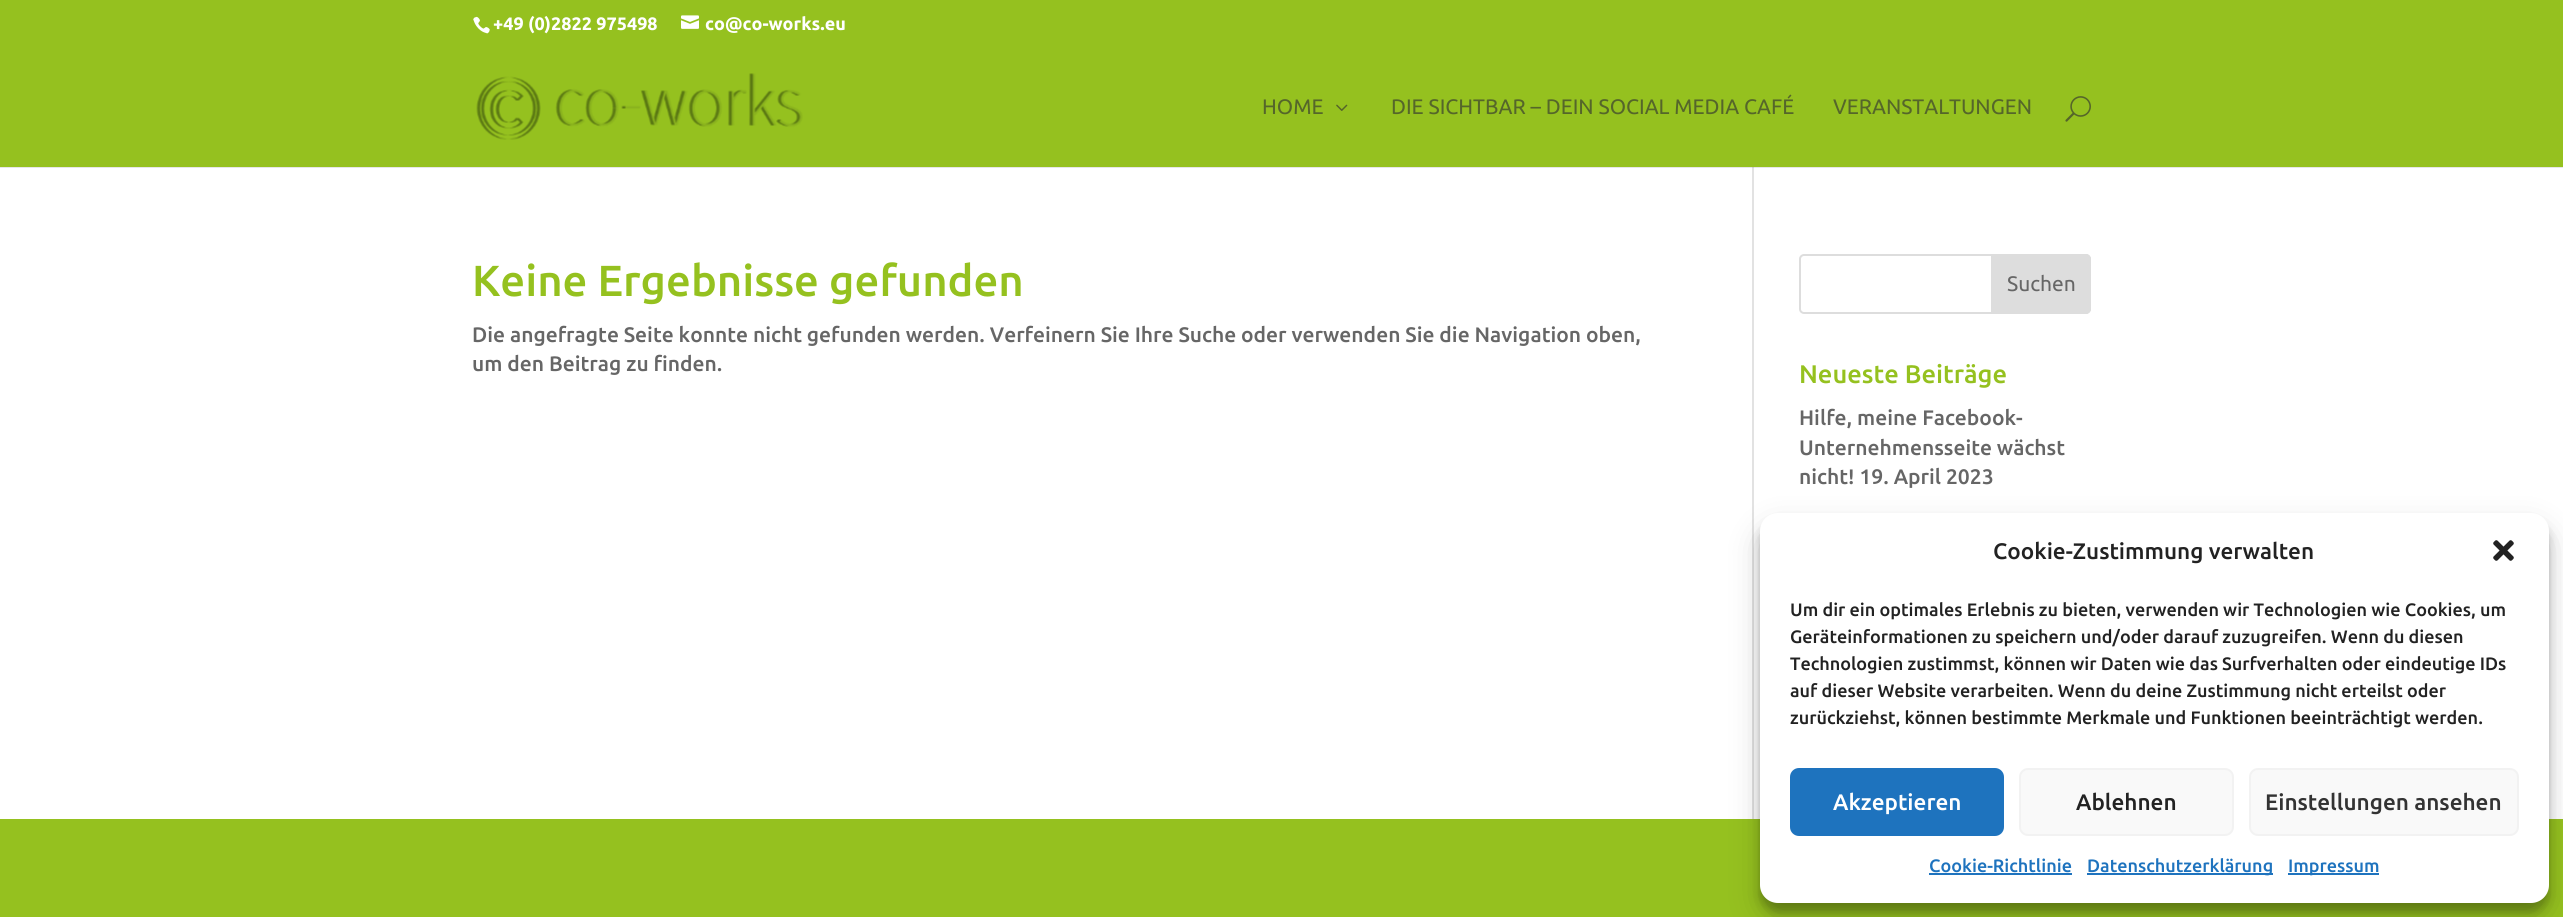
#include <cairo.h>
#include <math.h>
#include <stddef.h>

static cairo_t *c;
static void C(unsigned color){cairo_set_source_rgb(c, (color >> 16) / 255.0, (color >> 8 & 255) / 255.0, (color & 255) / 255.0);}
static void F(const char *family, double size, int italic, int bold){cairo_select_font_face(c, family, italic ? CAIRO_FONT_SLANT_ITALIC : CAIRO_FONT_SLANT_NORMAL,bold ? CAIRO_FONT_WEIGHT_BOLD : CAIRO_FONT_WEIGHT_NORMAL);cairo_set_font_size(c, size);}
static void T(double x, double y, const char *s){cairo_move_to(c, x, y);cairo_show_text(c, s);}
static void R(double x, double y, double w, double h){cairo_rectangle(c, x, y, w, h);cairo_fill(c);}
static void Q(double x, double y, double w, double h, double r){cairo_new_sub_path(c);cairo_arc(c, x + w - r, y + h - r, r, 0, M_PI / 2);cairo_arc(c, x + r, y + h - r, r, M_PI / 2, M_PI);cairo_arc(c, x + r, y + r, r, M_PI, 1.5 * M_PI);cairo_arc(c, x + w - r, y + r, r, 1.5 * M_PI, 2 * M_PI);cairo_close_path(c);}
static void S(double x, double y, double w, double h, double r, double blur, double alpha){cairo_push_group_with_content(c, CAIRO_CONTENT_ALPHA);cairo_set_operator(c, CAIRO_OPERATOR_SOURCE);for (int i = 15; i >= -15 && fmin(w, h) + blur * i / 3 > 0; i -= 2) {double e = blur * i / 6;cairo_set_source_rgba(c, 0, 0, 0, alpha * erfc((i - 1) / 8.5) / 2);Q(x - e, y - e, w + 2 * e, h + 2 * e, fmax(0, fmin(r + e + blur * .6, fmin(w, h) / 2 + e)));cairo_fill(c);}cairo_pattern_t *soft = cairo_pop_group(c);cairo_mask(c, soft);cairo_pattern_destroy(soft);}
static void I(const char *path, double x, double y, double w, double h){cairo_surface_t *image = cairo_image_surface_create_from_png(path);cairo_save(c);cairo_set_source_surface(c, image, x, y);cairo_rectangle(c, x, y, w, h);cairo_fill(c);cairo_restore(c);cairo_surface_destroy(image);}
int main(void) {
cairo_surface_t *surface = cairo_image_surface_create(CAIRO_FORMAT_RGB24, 2563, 917);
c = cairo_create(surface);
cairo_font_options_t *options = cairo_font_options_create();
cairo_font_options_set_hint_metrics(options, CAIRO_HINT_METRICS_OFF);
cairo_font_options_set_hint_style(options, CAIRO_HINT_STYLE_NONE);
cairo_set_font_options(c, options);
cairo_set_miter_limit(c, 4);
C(0xffffff);
cairo_paint(c);
C(0xe2e2e2);
R(1752,167,2,652);
cairo_set_source_rgba(c,0,0,0,0.1);
cairo_new_path(c);
cairo_move_to(c,0,166);
cairo_line_to(c,0,168);
cairo_line_to(c,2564,168);
cairo_line_to(c,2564,48);
cairo_line_to(c,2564,166);
cairo_close_path(c);
cairo_fill(c);
C(0x95c11f);
R(0,0,2563,167);
I("1.png",473,16,17,18);
F("Ubuntu",18,0,1);
C(0xffffff);
T(493,30,"+49 (0)2822 975498");
I("2.png",681,15,18,14);
T(705,30,"co@co-works.eu");
I("3.png",476,73,327,67);
F("Ubuntu",21,0,0);
C(0x55662a);
T(1262,114,"HOME");
I("4.png",1336,104,12,7);
T(1391,114,"DIE SICHTBAR – DEIN SOCIAL MEDIA CAFÉ");
T(1833,114,"VERANSTALTUNGEN");
I("5.png",2065,96,26,26);
F("Ubuntu Medium",43.5,0,0);
C(0x95c11f);
T(472,296,"Keine Ergebnisse gefunden");
F("Ubuntu Medium",21,0,0);
C(0x666666);
T(472,342,"Die angefragte Seite konnte nicht gefunden werden. Verfeinern Sie Ihre Suche oder verwenden Sie die Navigation oben,");
T(472,371,"um den Beitrag zu finden.");
Q(1800,255,290,58,4);
C(0xdddddd);
cairo_stroke(c);
cairo_new_path(c);
cairo_move_to(c,1992,255);
cairo_line_to(c,2086,255);
cairo_curve_to(c,2088,255,2090,257,2090,259);
cairo_line_to(c,2090,309);
cairo_curve_to(c,2090,311,2088,313,2086,313);
cairo_line_to(c,1992,313);
cairo_close_path(c);
cairo_fill_preserve(c);
cairo_stroke(c);
F("Ubuntu",21,0,0);
C(0x666666);
T(2007,291,"Suchen");
F("Ubuntu Medium",25.5,0,0);
C(0x95c11f);
T(1799,383,"Neueste Beiträge");
F("Ubuntu Medium",21,0,0);
C(0x666666);
T(1799,425,"Hilfe, meine Facebook-");
T(1799,455,"Unternehmensseite wächst");
T(1799,484,"nicht! 19. April 2023");
C(0x95c11f);
R(0,819,2563,98);
C(0x000000);
S(1760,522,789,390,18,4.5,.23);
S(1760,528,789,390,18,15,.19);
C(0xffffff);
Q(1760,513,789,390,18);
cairo_fill(c);
F("Ubuntu Medium",22.5,0,0);
C(0x222222);
T(1993,559,"Cookie-Zustimmung verwalten");
I("6.png",2493,540,21,21);
F("Ubuntu Medium",18,0,0);
T(1790,616,"Um dir ein optimales Erlebnis zu bieten, verwenden wir Technologien wie Cookies, um");
T(1790,643,"Geräteinformationen zu speichern und/oder darauf zuzugreifen. Wenn du diesen");
cairo_save(c);
cairo_rectangle(c,1790,596,729,142);
cairo_clip(c);
T(1790,670,"Technologien zustimmst, können wir Daten wie das Surfverhalten oder eindeutige IDs");
cairo_restore(c);
T(1790,697,"auf dieser Website verarbeiten. Wenn du deine Zustimmung nicht erteilst oder");
T(1790,724,"zurückziehst, können bestimmte Merkmale und Funktionen beeinträchtigt werden.");
C(0x1e73be);
Q(1791,769,212,66,8);
cairo_fill_preserve(c);
cairo_stroke(c);
F("Ubuntu Medium",22.5,0,0);
C(0xffffff);
T(1833,810,"Akzeptieren");
C(0xf9f9f9);
Q(2020,769,213,66,8);
cairo_fill_preserve(c);
C(0xf2f2f2);
cairo_stroke(c);
C(0x222222);
T(2076,810,"Ablehnen");
C(0xf9f9f9);
Q(2250,769,268,66,8);
cairo_fill_preserve(c);
C(0xf2f2f2);
cairo_stroke(c);
C(0x333333);
T(2265,810,"Einstellungen ansehen");
F("Ubuntu Medium",18,0,0);
C(0x1e73be);
T(1929,872,"Cookie-Richtlinie");
R(1929,873,143,2);
R(2087,873,186,2);
T(2087,872,"Datenschutzerklärung");
R(2288,873,91,2);
T(2288,872,"Impressum");
cairo_surface_write_to_png(surface, "o.png");
cairo_font_options_destroy(options);
cairo_destroy(c);
cairo_surface_destroy(surface);
return 0;
}
